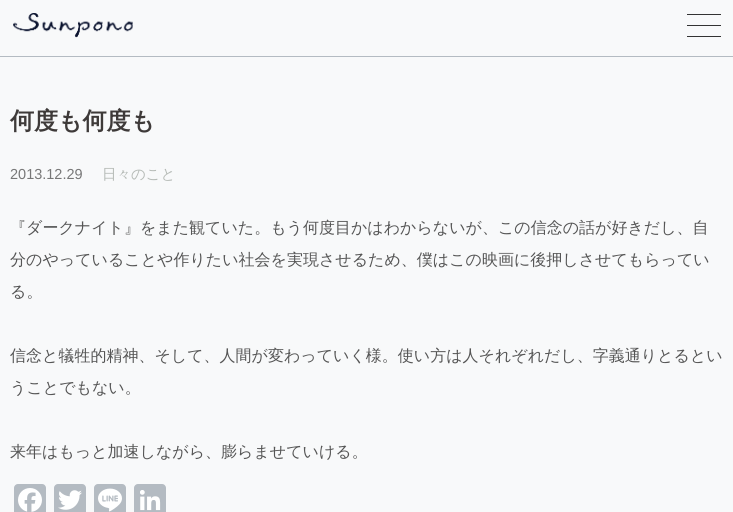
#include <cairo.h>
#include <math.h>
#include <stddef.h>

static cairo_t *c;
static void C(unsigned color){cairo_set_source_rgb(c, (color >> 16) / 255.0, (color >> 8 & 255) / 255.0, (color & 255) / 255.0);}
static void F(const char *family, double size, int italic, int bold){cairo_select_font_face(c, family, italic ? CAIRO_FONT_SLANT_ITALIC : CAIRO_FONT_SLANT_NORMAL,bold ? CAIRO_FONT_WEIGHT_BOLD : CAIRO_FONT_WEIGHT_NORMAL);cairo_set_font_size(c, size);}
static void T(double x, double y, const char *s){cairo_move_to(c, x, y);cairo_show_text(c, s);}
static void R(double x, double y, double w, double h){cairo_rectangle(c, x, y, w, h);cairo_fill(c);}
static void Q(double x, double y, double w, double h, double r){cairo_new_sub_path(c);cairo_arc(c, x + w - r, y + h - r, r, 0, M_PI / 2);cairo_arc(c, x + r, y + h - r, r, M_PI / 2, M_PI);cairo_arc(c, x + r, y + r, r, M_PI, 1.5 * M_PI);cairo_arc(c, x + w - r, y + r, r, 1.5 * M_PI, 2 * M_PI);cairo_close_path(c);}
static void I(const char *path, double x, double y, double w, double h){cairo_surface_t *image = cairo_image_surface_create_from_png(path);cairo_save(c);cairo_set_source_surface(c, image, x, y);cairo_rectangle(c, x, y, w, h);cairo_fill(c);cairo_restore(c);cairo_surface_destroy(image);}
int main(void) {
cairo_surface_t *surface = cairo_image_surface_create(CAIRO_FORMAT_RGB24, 733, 512);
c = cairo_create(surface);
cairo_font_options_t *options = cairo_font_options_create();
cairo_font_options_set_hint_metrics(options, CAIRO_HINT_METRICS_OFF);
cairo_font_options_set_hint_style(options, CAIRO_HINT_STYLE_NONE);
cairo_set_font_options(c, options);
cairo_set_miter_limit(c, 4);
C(0xf8f9fa);
cairo_paint(c);
C(0xb4bbc2);
R(0,56,733,1);
I("1.png",13,13,120,25);
C(0x333333);
R(687,14,34,1);
R(687,25,34,1);
R(687,36,34,1);
F("WenQuanYi Zen Hei",24,0,1);
C(0x3e3a39);
T(10,129,"何度も何度も");
F("Liberation Sans",14.5,0,0);
C(0x777777);
T(10,179,"2013.12.29");
F("WenQuanYi Zen Hei Medium",14.5,0,0);
C(0xb6bbb7);
T(102,179,"日々のこと");
F("WenQuanYi Zen Hei Medium",16,0,0);
C(0x555555);
T(10,233,"『ダークナイト』をまた観ていた。もう何度目かはわからないが、この信念の話が好きだし、自");
T(10,265,"分のやっていることや作りたい社会を実現させるため、僕はこの映画に後押しさせてもらってい");
T(10,297,"る。");
T(10,361,"信念と犠牲的精神、そして、人間が変わっていく様。使い方は人それぞれだし、字義通りとるとい");
T(10,393,"うことでもない。");
T(10,457,"来年はもっと加速しながら、膨らませていける。");
C(0xb4bbc2);
Q(14,484,32,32,4);
cairo_fill(c);
I("2.png",18,488,24,24);
Q(54,484,32,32,4);
cairo_fill(c);
I("3.png",58,490,24,20);
Q(94,484,32,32,4);
cairo_fill(c);
I("4.png",98,488,24,24);
Q(134,484,32,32,4);
cairo_fill(c);
I("5.png",140,490,21,21);
cairo_surface_write_to_png(surface, "o.png");
cairo_font_options_destroy(options);
cairo_destroy(c);
cairo_surface_destroy(surface);
return 0;
}
